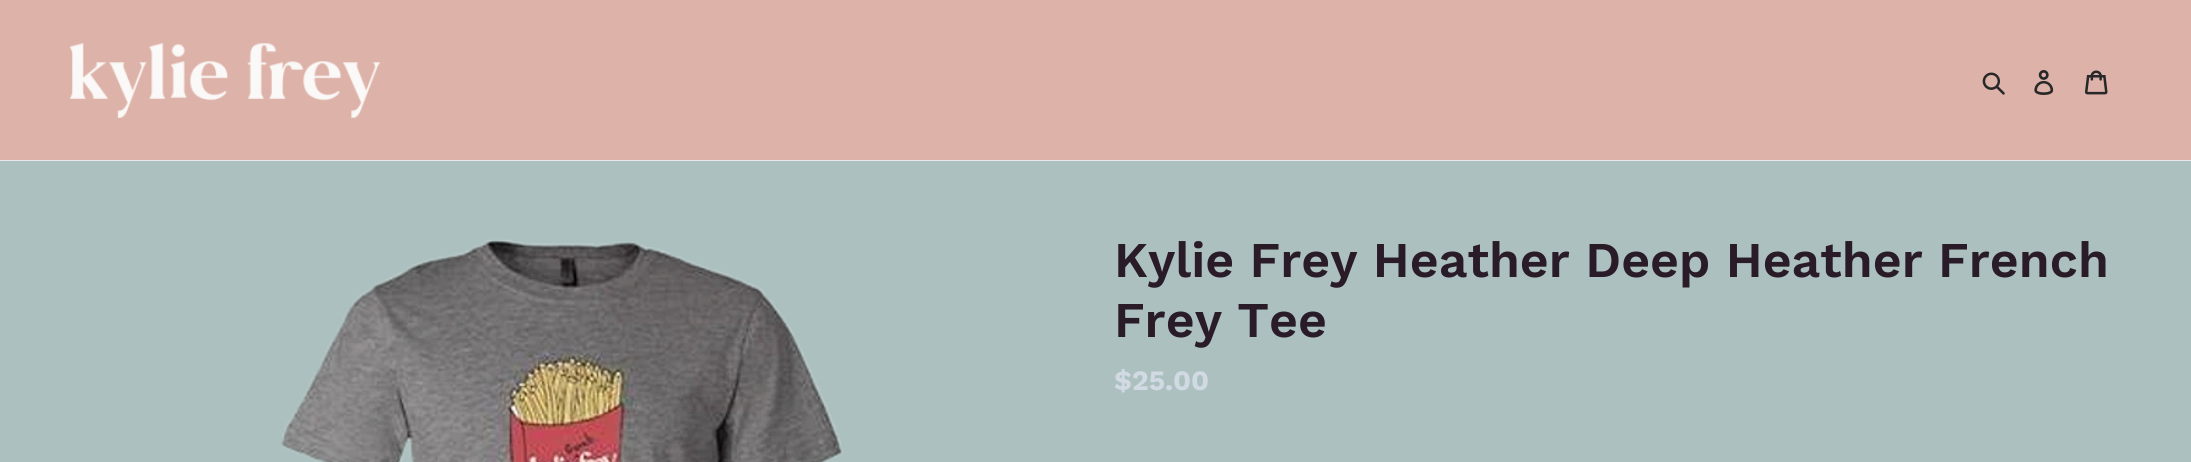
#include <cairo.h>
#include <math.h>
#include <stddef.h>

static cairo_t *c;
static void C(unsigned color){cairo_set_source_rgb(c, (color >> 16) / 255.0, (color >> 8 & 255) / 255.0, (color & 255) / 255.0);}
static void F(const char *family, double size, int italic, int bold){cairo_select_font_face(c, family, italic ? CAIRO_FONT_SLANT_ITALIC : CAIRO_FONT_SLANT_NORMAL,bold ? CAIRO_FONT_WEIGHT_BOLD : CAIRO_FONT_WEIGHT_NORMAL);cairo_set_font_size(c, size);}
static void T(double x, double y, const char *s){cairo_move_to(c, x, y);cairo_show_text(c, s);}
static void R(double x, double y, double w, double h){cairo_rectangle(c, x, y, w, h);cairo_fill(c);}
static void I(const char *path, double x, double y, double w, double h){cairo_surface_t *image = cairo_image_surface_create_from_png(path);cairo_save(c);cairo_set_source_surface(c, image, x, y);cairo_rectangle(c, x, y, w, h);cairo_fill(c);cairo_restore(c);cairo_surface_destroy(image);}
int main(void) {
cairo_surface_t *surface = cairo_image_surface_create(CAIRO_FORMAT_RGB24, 2191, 462);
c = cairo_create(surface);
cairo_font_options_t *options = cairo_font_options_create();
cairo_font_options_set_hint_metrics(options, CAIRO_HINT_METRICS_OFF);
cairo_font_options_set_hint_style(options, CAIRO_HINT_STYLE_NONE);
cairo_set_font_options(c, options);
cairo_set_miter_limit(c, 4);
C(0xabc0bf);
cairo_paint(c);
C(0xddb2a8);
R(0,0,2191,160);
C(0xe8e9eb);
R(0,160,2191,1);
I("1.png",69,43,312,75);
I("2.png",1982,72,23,23);
I("3.png",2034,70,20,25);
I("4.png",2085,70,23,25);
I("5.png",281,239,563,223);
F("Work Sans SemiBold",50,0,0);
C(0x291b28);
T(1114,277,"Kylie Frey Heather Deep Heather French");
T(1114,337,"Frey Tee");
F("Work Sans",28,0,1);
C(0xd1dae3);
T(1114,390,"$25.00");
cairo_surface_write_to_png(surface, "o.png");
cairo_font_options_destroy(options);
cairo_destroy(c);
cairo_surface_destroy(surface);
return 0;
}
